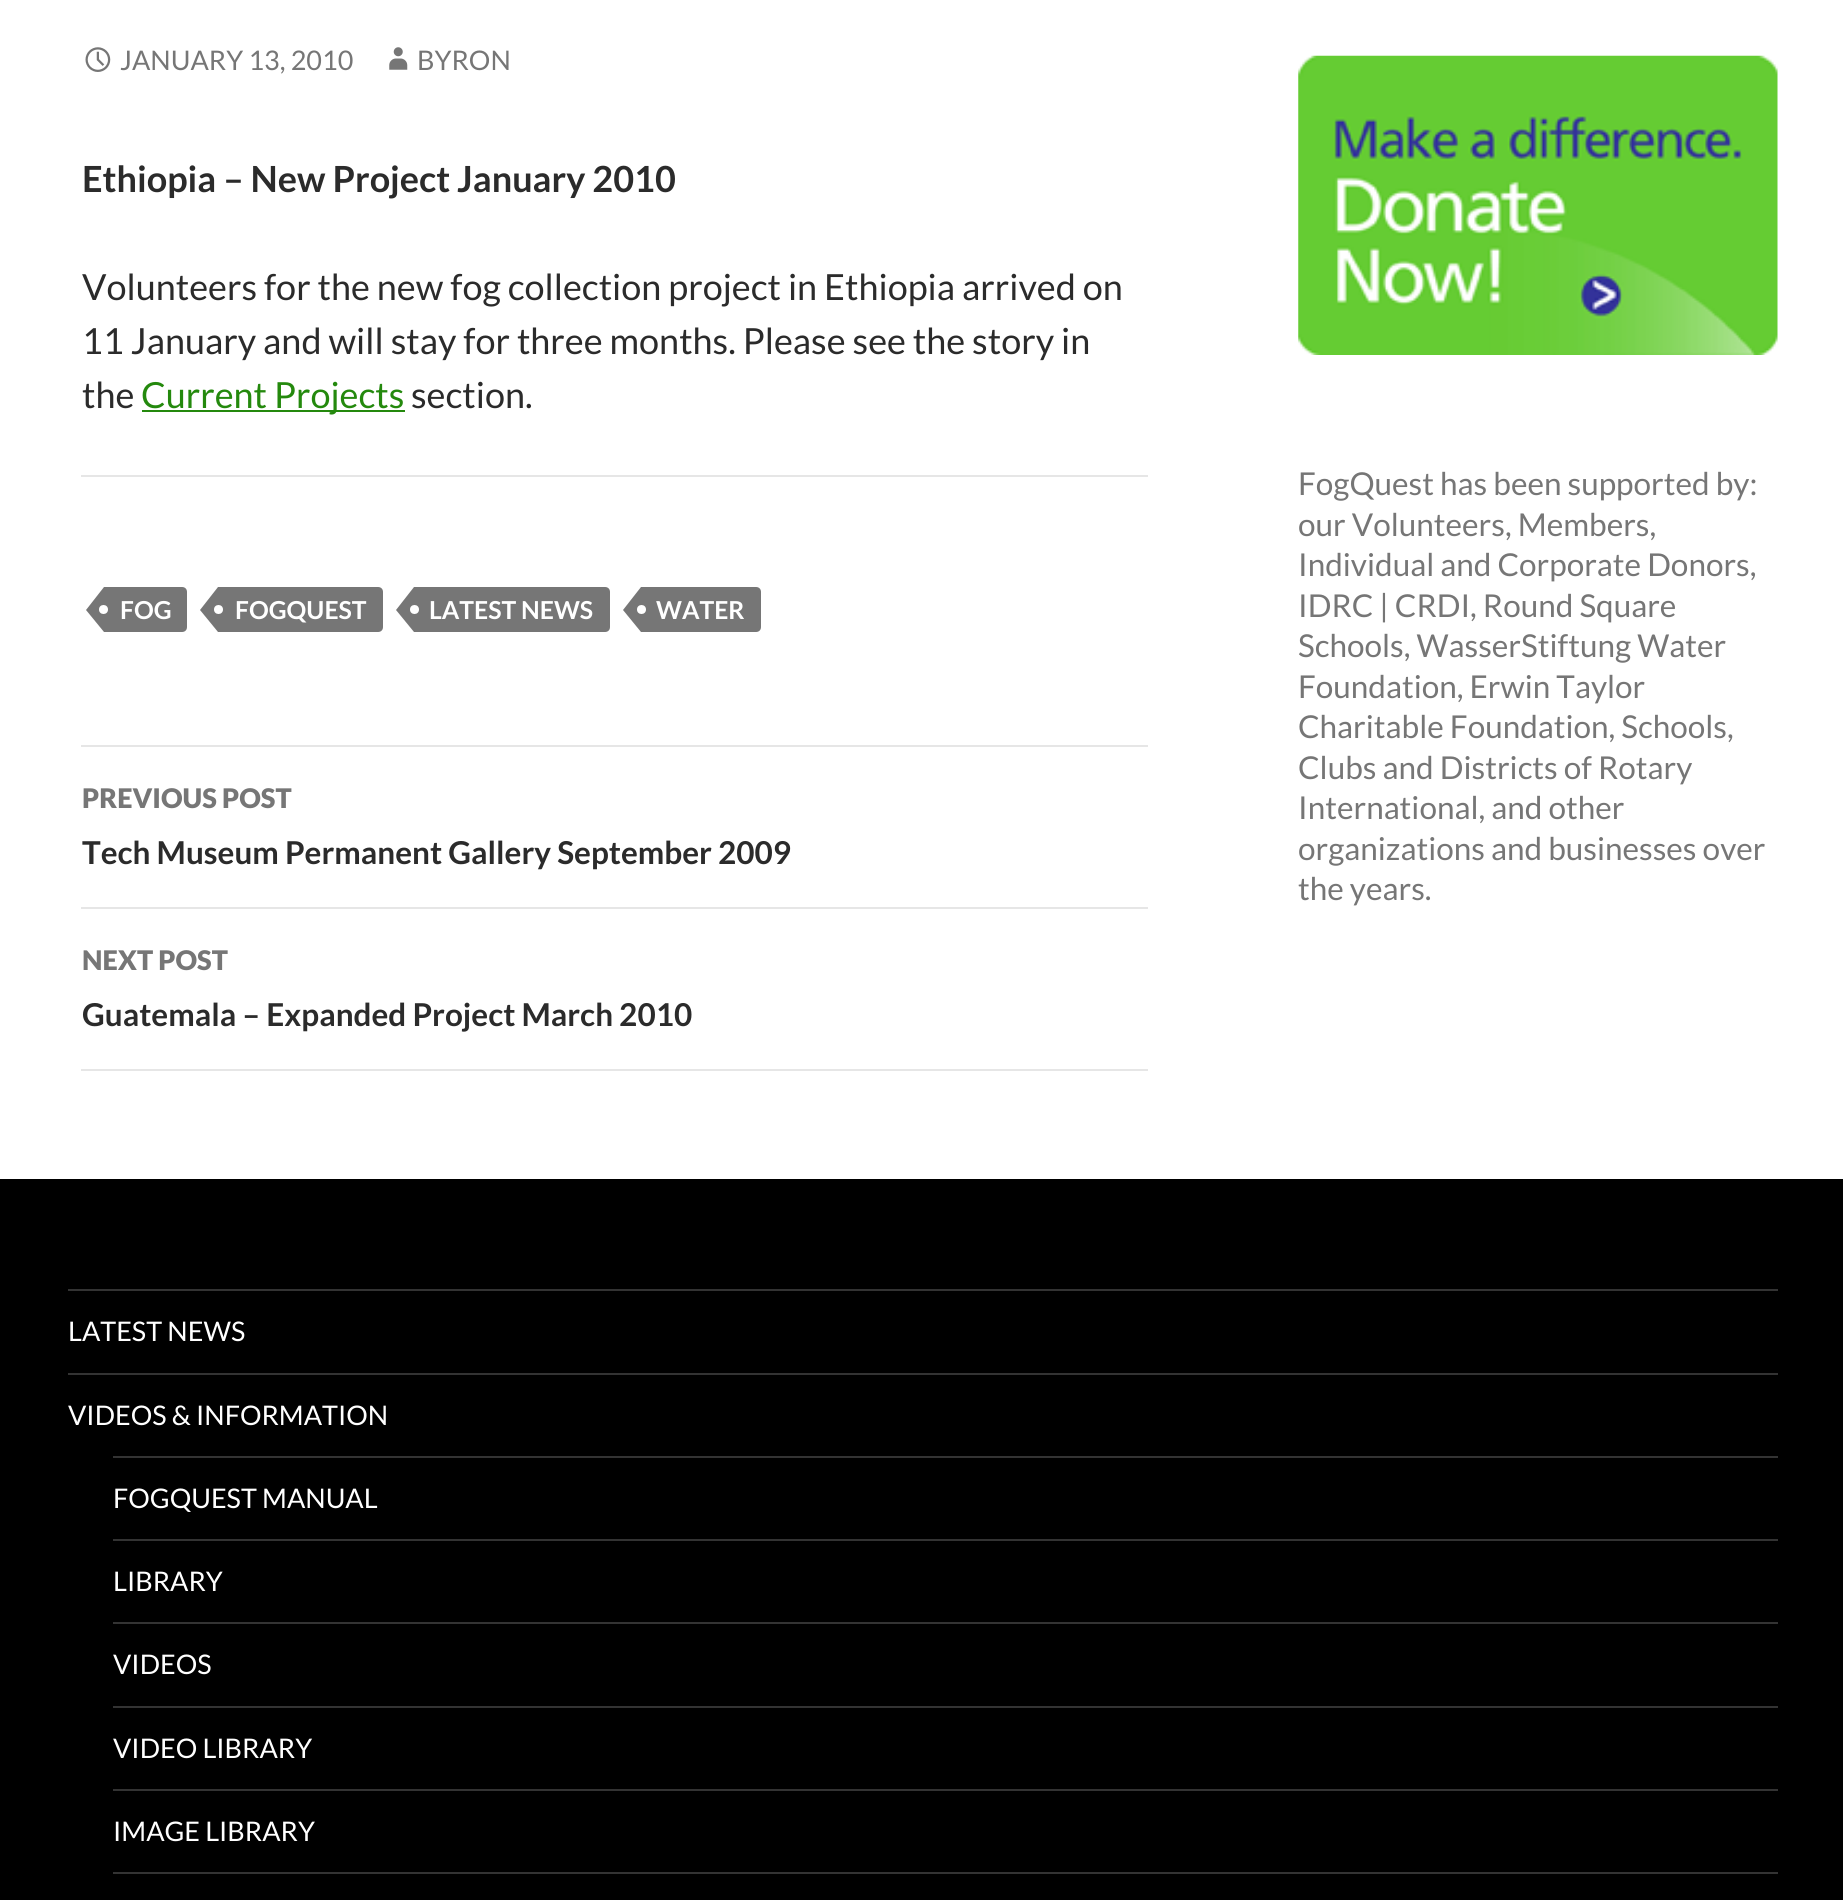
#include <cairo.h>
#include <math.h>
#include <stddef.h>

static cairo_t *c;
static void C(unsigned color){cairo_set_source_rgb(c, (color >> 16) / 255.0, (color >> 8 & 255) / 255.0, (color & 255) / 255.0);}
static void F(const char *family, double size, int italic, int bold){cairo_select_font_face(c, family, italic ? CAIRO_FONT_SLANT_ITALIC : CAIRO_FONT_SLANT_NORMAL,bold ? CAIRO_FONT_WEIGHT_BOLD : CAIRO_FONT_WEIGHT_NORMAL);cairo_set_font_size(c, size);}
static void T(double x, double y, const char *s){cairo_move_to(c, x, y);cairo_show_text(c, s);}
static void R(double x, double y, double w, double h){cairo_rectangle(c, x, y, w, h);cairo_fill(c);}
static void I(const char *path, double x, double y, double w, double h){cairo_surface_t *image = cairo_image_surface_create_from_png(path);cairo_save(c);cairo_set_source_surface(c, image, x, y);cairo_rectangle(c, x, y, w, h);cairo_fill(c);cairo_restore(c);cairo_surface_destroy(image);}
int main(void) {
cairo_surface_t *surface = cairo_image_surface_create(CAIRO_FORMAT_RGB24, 1843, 1900);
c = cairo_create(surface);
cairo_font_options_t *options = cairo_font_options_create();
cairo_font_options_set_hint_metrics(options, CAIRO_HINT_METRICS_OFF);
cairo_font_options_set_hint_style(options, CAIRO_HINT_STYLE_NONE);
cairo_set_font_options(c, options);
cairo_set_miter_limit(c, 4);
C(0xffffff);
cairo_paint(c);
I("1.png",85,47,26,25);
F("Lato",27,0,0);
C(0x767676);
T(120,70,"JANUARY 13, 2010");
I("2.png",389,47,19,23);
T(417,70,"BYRON");
F("Lato",36,0,1);
C(0x2b2b2b);
T(82,192,"Ethiopia – New Project January 2010");
F("Lato",36,0,0);
T(82,300,"Volunteers for the new fog collection project in Ethiopia arrived on");
T(82,354,"11 January and will stay for three months. Please see the story in");
T(82,408,"the");
C(0x24890d);
R(142,410,263,2);
T(141,408,"Current Projects");
C(0x2b2b2b);
T(411,408,"section.");
C(0xe6e6e6);
R(81,475,1067,2);
C(0x767676);
cairo_new_path(c);
cairo_move_to(c,104,587);
cairo_line_to(c,182,587);
cairo_curve_to(c,185,587,187,589,187,592);
cairo_line_to(c,187,627);
cairo_curve_to(c,187,630,185,632,182,632);
cairo_line_to(c,104,632);
cairo_close_path(c);
cairo_fill(c);
cairo_new_path(c);
cairo_move_to(c,104,587);
cairo_line_to(c,104,632);
cairo_line_to(c,86,610);
cairo_close_path(c);
cairo_fill(c);
F("Lato",24.75,0,1);
C(0xffffff);
T(120,619,"FOG");
cairo_new_path(c);
cairo_arc(c,103.5,609.5,4.5,0,2 * M_PI);
cairo_fill(c);
C(0x767676);
cairo_new_path(c);
cairo_move_to(c,218,587);
cairo_line_to(c,378,587);
cairo_curve_to(c,381,587,383,589,383,592);
cairo_line_to(c,383,627);
cairo_curve_to(c,383,630,381,632,378,632);
cairo_line_to(c,218,632);
cairo_close_path(c);
cairo_fill(c);
cairo_new_path(c);
cairo_move_to(c,218,587);
cairo_line_to(c,218,632);
cairo_line_to(c,200,610);
cairo_close_path(c);
cairo_fill(c);
C(0xffffff);
cairo_arc(c,218.5,609.5,4.5,0,2 * M_PI);
cairo_fill(c);
T(235,619,"FOGQUEST");
C(0x767676);
cairo_new_path(c);
cairo_move_to(c,414,587);
cairo_line_to(c,605,587);
cairo_curve_to(c,608,587,610,589,610,592);
cairo_line_to(c,610,627);
cairo_curve_to(c,610,630,608,632,605,632);
cairo_line_to(c,414,632);
cairo_close_path(c);
cairo_fill(c);
cairo_new_path(c);
cairo_move_to(c,414,587);
cairo_line_to(c,414,632);
cairo_line_to(c,396,610);
cairo_close_path(c);
cairo_fill(c);
C(0xffffff);
cairo_arc(c,414.5,609.5,4.5,0,2 * M_PI);
cairo_fill(c);
T(429,619,"LATEST NEWS");
C(0x767676);
cairo_new_path(c);
cairo_move_to(c,641,587);
cairo_line_to(c,756,587);
cairo_curve_to(c,759,587,761,589,761,592);
cairo_line_to(c,761,627);
cairo_curve_to(c,761,630,759,632,756,632);
cairo_line_to(c,641,632);
cairo_close_path(c);
cairo_fill(c);
cairo_new_path(c);
cairo_move_to(c,641,587);
cairo_line_to(c,641,632);
cairo_line_to(c,623,610);
cairo_close_path(c);
cairo_fill(c);
C(0xffffff);
cairo_arc(c,641.5,609.5,4.5,0,2 * M_PI);
cairo_fill(c);
T(656,619,"WATER");
C(0xe6e6e6);
R(81,745,1067,2);
R(81,907,1067,2);
F("Lato Black",27,0,0);
C(0x767676);
T(82,808,"PREVIOUS POST");
F("Lato",31.5,0,1);
C(0x2b2b2b);
T(82,864,"Tech Museum Permanent Gallery September 2009");
C(0xe6e6e6);
R(81,1069,1067,2);
F("Lato Black",27,0,0);
C(0x767676);
T(82,970,"NEXT POST");
F("Lato",31.5,0,1);
C(0x2b2b2b);
T(82,1026,"Guatemala – Expanded Project March 2010");
I("3.png",1298,55,480,300);
F("Lato",31.5,0,0);
C(0x767676);
T(1298,495,"FogQuest has been supported by:");
T(1298,536,"our Volunteers, Members,");
T(1298,576,"Individual and Corporate Donors,");
T(1298,617,"IDRC | CRDI, Round Square");
T(1298,657,"Schools, WasserStiftung Water");
T(1298,698,"Foundation, Erwin Taylor");
T(1298,738,"Charitable Foundation, Schools,");
T(1298,779,"Clubs and Districts of Rotary");
T(1298,819,"International, and other");
T(1298,860,"organizations and businesses over");
T(1298,900,"the years.");
C(0x000000);
R(0,1179,1843,721);
C(0x333333);
R(68,1289,1710,2);
F("Lato",27,0,0);
C(0xffffff);
T(68,1341,"LATEST NEWS");
C(0x333333);
R(68,1373,1710,2);
C(0xffffff);
T(68,1425,"VIDEOS & INFORMATION");
C(0x333333);
R(113,1456,1665,2);
C(0xffffff);
T(113,1508,"FOGQUEST MANUAL");
C(0x333333);
R(113,1539,1665,2);
C(0xffffff);
T(113,1591,"LIBRARY");
C(0x333333);
R(113,1622,1665,2);
C(0xffffff);
T(113,1674,"VIDEOS");
C(0x333333);
R(113,1706,1665,2);
C(0xffffff);
T(113,1758,"VIDEO LIBRARY");
C(0x333333);
R(113,1789,1665,2);
C(0xffffff);
T(113,1841,"IMAGE LIBRARY");
C(0x333333);
R(113,1872,1665,2);
cairo_surface_write_to_png(surface, "o.png");
cairo_font_options_destroy(options);
cairo_destroy(c);
cairo_surface_destroy(surface);
return 0;
}
